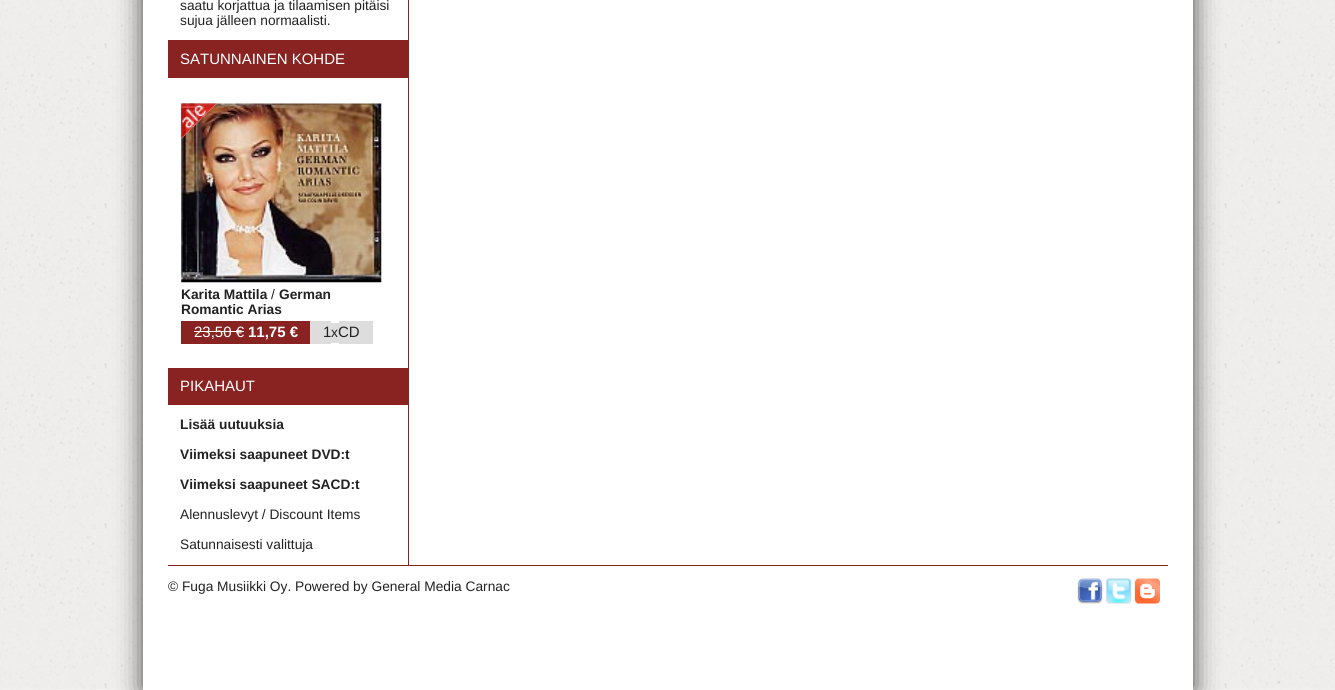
#include <cairo.h>
#include <math.h>
#include <stddef.h>

static cairo_t *c;
static void C(unsigned color){cairo_set_source_rgb(c, (color >> 16) / 255.0, (color >> 8 & 255) / 255.0, (color & 255) / 255.0);}
static void F(const char *family, double size, int italic, int bold){cairo_select_font_face(c, family, italic ? CAIRO_FONT_SLANT_ITALIC : CAIRO_FONT_SLANT_NORMAL,bold ? CAIRO_FONT_WEIGHT_BOLD : CAIRO_FONT_WEIGHT_NORMAL);cairo_set_font_size(c, size);}
static void T(double x, double y, const char *s){cairo_move_to(c, x, y);cairo_show_text(c, s);}
static void R(double x, double y, double w, double h){cairo_rectangle(c, x, y, w, h);cairo_fill(c);}
static void Q(double x, double y, double w, double h, double r){cairo_new_sub_path(c);cairo_arc(c, x + w - r, y + h - r, r, 0, M_PI / 2);cairo_arc(c, x + r, y + h - r, r, M_PI / 2, M_PI);cairo_arc(c, x + r, y + r, r, M_PI, 1.5 * M_PI);cairo_arc(c, x + w - r, y + r, r, 1.5 * M_PI, 2 * M_PI);cairo_close_path(c);}
static void S(double x, double y, double w, double h, double r, double blur, double alpha){cairo_push_group_with_content(c, CAIRO_CONTENT_ALPHA);cairo_set_operator(c, CAIRO_OPERATOR_SOURCE);for (int i = 15; i >= -15 && fmin(w, h) + blur * i / 3 > 0; i -= 2) {double e = blur * i / 6;cairo_set_source_rgba(c, 0, 0, 0, alpha * erfc((i - 1) / 8.5) / 2);Q(x - e, y - e, w + 2 * e, h + 2 * e, fmax(0, fmin(r + e + blur * .6, fmin(w, h) / 2 + e)));cairo_fill(c);}cairo_pattern_t *soft = cairo_pop_group(c);cairo_mask(c, soft);cairo_pattern_destroy(soft);}
static void I(const char *path, double x, double y, double w, double h){cairo_surface_t *image = cairo_image_surface_create_from_png(path);cairo_save(c);cairo_set_source_surface(c, image, x, y);cairo_rectangle(c, x, y, w, h);cairo_fill(c);cairo_restore(c);cairo_surface_destroy(image);}
int main(void) {
cairo_surface_t *surface = cairo_image_surface_create(CAIRO_FORMAT_RGB24, 1335, 690);
c = cairo_create(surface);
cairo_font_options_t *options = cairo_font_options_create();
cairo_font_options_set_hint_metrics(options, CAIRO_HINT_METRICS_OFF);
cairo_font_options_set_hint_style(options, CAIRO_HINT_STYLE_NONE);
cairo_set_font_options(c, options);
cairo_set_miter_limit(c, 4);
C(0xffffff);
cairo_paint(c);
I("1.png",0,0,1335,690);
C(0x444444);
S(143,-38,1050,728,0,12.5,1);
C(0xffffff);
R(143,0,1050,690);
C(0x892322);
R(408,0,1,565);
F("Liberation Sans",13.75,0,0);
C(0x222222);
T(180,10,"saatu korjattua ja tilaamisen pitäisi");
T(180,25,"sujua jälleen normaalisti.");
C(0x892322);
R(168,40,240,38);
F("Liberation Sans",15,0,0);
C(0xffffff);
T(180,64,"SATUNNAINEN KOHDE");
I("2.png",181,103,201,180);
I("3.png",181,103,36,36);
F("Liberation Sans",13.75,0,1);
C(0x222222);
T(181,299,"Karita Mattila");
F("Liberation Sans",13.75,0,0);
T(271,299,"/");
F("Liberation Sans",13.75,0,1);
T(279,299,"German");
T(181,314,"Romantic Arias");
C(0x892322);
R(181,321,129,23);
F("Liberation Sans",15,0,0);
C(0xffffff);
T(194,337,"23,50 €");
R(194,331,50,1);
F("Liberation Sans",15,0,1);
T(248,337,"11,75 €");
C(0xdddddd);
R(310,321,21,23);
F("Liberation Sans",15,0,0);
C(0x222222);
T(323,337,"1");
C(0xdddddd);
R(331,323,8,20);
F("Liberation Sans",13.75,0,0);
C(0x222222);
T(331,337,"x");
C(0xdddddd);
R(339,321,34,23);
F("Liberation Sans",15,0,0);
C(0x222222);
T(338,337,"CD");
C(0x892322);
R(168,368,240,37);
C(0xffffff);
T(180,391,"PIKAHAUT");
F("Liberation Sans",13.75,0,1);
C(0x222222);
T(180,429,"Lisää uutuuksia");
T(180,459,"Viimeksi saapuneet DVD:t");
T(180,489,"Viimeksi saapuneet SACD:t");
F("Liberation Sans",13.75,0,0);
T(180,519,"Alennuslevyt / Discount Items");
T(180,549,"Satunnaisesti valittuja");
C(0x892322);
R(168,565,1000,1);
C(0x222222);
T(168,591,"© Fuga Musiikki Oy. Powered by General Media Carnac");
I("4.png",1077,578,26,26);
I("5.png",1106,578,26,26);
I("6.png",1135,578,25,26);
cairo_surface_write_to_png(surface, "o.png");
cairo_font_options_destroy(options);
cairo_destroy(c);
cairo_surface_destroy(surface);
return 0;
}
